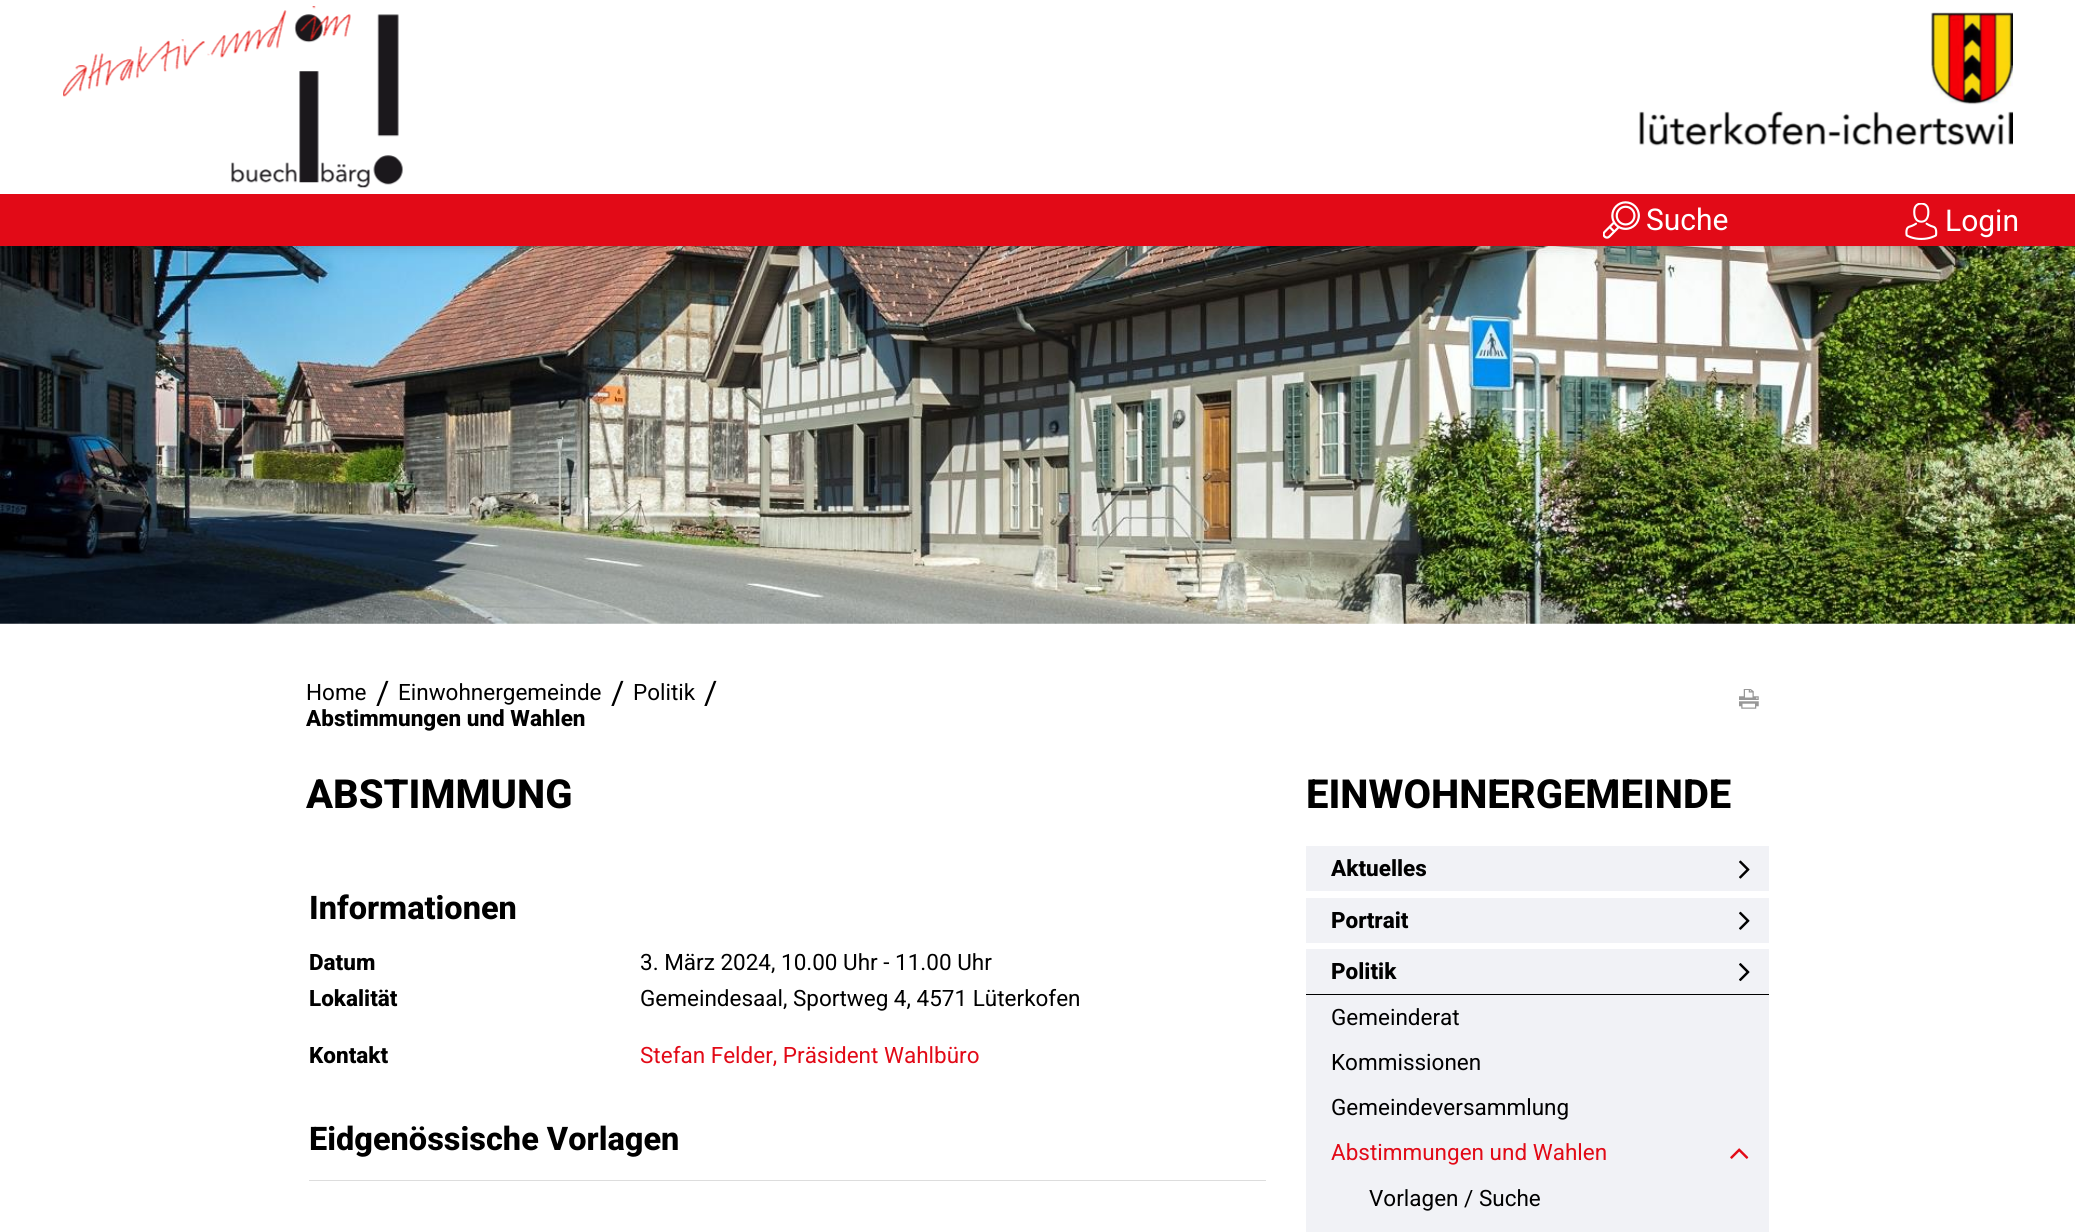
#include <cairo.h>
#include <math.h>
#include <stddef.h>

static cairo_t *c;
static void C(unsigned color){cairo_set_source_rgb(c, (color >> 16) / 255.0, (color >> 8 & 255) / 255.0, (color & 255) / 255.0);}
static void F(const char *family, double size, int italic, int bold){cairo_select_font_face(c, family, italic ? CAIRO_FONT_SLANT_ITALIC : CAIRO_FONT_SLANT_NORMAL,bold ? CAIRO_FONT_WEIGHT_BOLD : CAIRO_FONT_WEIGHT_NORMAL);cairo_set_font_size(c, size);}
static void T(double x, double y, const char *s){cairo_move_to(c, x, y);cairo_show_text(c, s);}
static void R(double x, double y, double w, double h){cairo_rectangle(c, x, y, w, h);cairo_fill(c);}
static void Q(double x, double y, double w, double h, double r){cairo_new_sub_path(c);cairo_arc(c, x + w - r, y + h - r, r, 0, M_PI / 2);cairo_arc(c, x + r, y + h - r, r, M_PI / 2, M_PI);cairo_arc(c, x + r, y + r, r, M_PI, 1.5 * M_PI);cairo_arc(c, x + w - r, y + r, r, 1.5 * M_PI, 2 * M_PI);cairo_close_path(c);}
static void S(double x, double y, double w, double h, double r, double blur, double alpha){cairo_push_group_with_content(c, CAIRO_CONTENT_ALPHA);cairo_set_operator(c, CAIRO_OPERATOR_SOURCE);for (int i = 15; i >= -15 && fmin(w, h) + blur * i / 3 > 0; i -= 2) {double e = blur * i / 6;cairo_set_source_rgba(c, 0, 0, 0, alpha * erfc((i - 1) / 8.5) / 2);Q(x - e, y - e, w + 2 * e, h + 2 * e, fmax(0, fmin(r + e + blur * .6, fmin(w, h) / 2 + e)));cairo_fill(c);}cairo_pattern_t *soft = cairo_pop_group(c);cairo_mask(c, soft);cairo_pattern_destroy(soft);}
static void I(const char *path, double x, double y, double w, double h){cairo_surface_t *image = cairo_image_surface_create_from_png(path);cairo_save(c);cairo_set_source_surface(c, image, x, y);cairo_rectangle(c, x, y, w, h);cairo_fill(c);cairo_restore(c);cairo_surface_destroy(image);}
int main(void) {
cairo_surface_t *surface = cairo_image_surface_create(CAIRO_FORMAT_RGB24, 2075, 1232);
c = cairo_create(surface);
cairo_font_options_t *options = cairo_font_options_create();
cairo_font_options_set_hint_metrics(options, CAIRO_HINT_METRICS_OFF);
cairo_font_options_set_hint_style(options, CAIRO_HINT_STYLE_NONE);
cairo_set_font_options(c, options);
cairo_set_miter_limit(c, 4);
C(0xffffff);
cairo_paint(c);
I("5.png",0,246,2075,378);
C(0x000000);
S(0,0,2075,246,0,6,.2);
C(0xffffff);
R(0,0,2075,194);
I("1.png",63,6,340,182);
I("2.png",1639,12,374,134);
C(0xe20a17);
R(0,194,2075,52);
I("3.png",1603,201,37,38);
F("Roboto",30,0,0);
C(0xffffff);
T(1646,230,"Suche");
I("4.png",1905,203,33,37);
T(1945,231,"Login");
F("Roboto",22.5,0,0);
C(0x000000);
T(306,700,"Home");
F("Roboto",32.5,0,0);
T(376,704,"/");
F("Roboto",22.5,0,0);
T(398,700,"Einwohnergemeinde");
F("Roboto",32.5,0,0);
T(611,704,"/");
F("Roboto",22.5,0,0);
T(633,700,"Politik");
F("Roboto",32.5,0,0);
T(704,704,"/");
F("Roboto ExtraBold",22.5,0,0);
T(306,726,"Abstimmungen und Wahlen");
I("6.png",1739,689,20,20);
F("Roboto ExtraBold",40,0,0);
T(306,808,"ABSTIMMUNG");
F("Roboto ExtraBold",32.5,0,0);
T(309,919,"Informationen");
F("Roboto ExtraBold",22.5,0,0);
T(309,970,"Datum");
F("Roboto",22.5,0,0);
T(640,970,"3. März 2024, 10.00 Uhr - 11.00 Uhr");
F("Roboto ExtraBold",22.5,0,0);
T(309,1006,"Lokalität");
F("Roboto",22.5,0,0);
T(640,1006,"Gemeindesaal, Sportweg 4, 4571 Lüterkofen");
F("Roboto ExtraBold",22.5,0,0);
T(309,1063,"Kontakt");
F("Roboto",22.5,0,0);
C(0xe20a17);
T(640,1063,"Stefan Felder, Präsident Wahlbüro");
F("Roboto ExtraBold",32.5,0,0);
C(0x000000);
T(309,1150,"Eidgenössische Vorlagen");
C(0xdddddd);
R(309,1180,957,1);
F("Roboto ExtraBold",40,0,0);
C(0x000000);
T(1306,808,"EINWOHNERGEMEINDE");
C(0xf1f2f6);
R(1306,846,463,45);
F("Roboto ExtraBold",22.5,0,0);
C(0x000000);
T(1331,876,"Aktuelles");
I("7.png",1739,860,11,19);
C(0xf1f2f6);
R(1306,898,463,45);
C(0x000000);
T(1331,928,"Portrait");
I("8.png",1739,911,11,19);
C(0xf1f2f6);
R(1306,949,463,283);
C(0x000000);
T(1331,979,"Politik");
I("9.png",1739,963,11,19);
R(1306,994,463,1);
F("Roboto",22.5,0,0);
T(1331,1025,"Gemeinderat");
T(1331,1070,"Kommissionen");
T(1331,1115,"Gemeindeversammlung");
C(0xe20a17);
T(1331,1160,"Abstimmungen und Wahlen");
I("10.png",1730,1148,19,11);
C(0x000000);
T(1369,1206,"Vorlagen / Suche");
cairo_surface_write_to_png(surface, "o.png");
cairo_font_options_destroy(options);
cairo_destroy(c);
cairo_surface_destroy(surface);
return 0;
}
